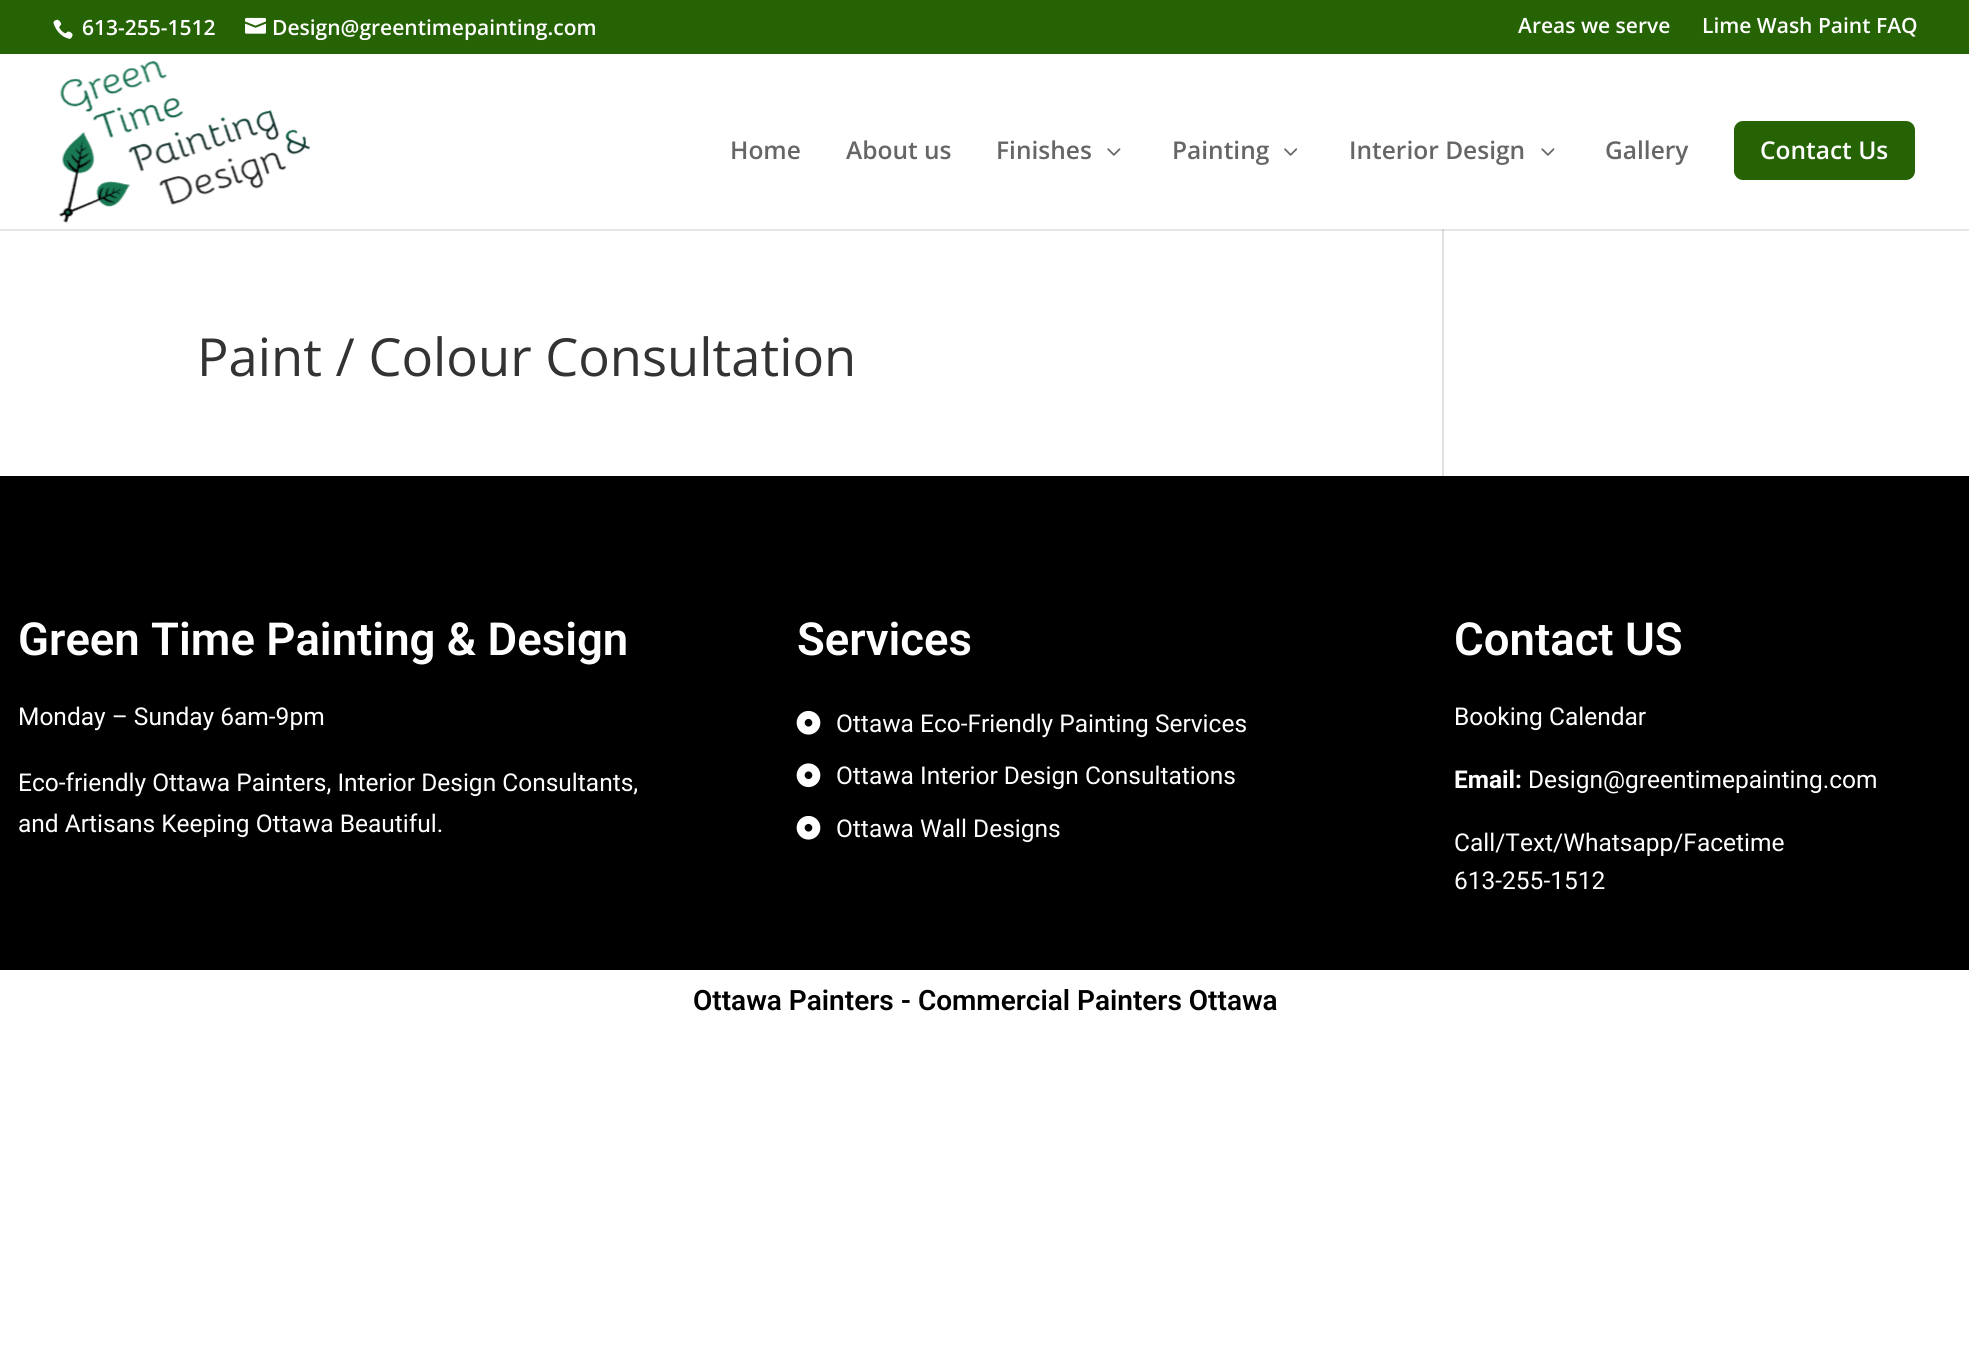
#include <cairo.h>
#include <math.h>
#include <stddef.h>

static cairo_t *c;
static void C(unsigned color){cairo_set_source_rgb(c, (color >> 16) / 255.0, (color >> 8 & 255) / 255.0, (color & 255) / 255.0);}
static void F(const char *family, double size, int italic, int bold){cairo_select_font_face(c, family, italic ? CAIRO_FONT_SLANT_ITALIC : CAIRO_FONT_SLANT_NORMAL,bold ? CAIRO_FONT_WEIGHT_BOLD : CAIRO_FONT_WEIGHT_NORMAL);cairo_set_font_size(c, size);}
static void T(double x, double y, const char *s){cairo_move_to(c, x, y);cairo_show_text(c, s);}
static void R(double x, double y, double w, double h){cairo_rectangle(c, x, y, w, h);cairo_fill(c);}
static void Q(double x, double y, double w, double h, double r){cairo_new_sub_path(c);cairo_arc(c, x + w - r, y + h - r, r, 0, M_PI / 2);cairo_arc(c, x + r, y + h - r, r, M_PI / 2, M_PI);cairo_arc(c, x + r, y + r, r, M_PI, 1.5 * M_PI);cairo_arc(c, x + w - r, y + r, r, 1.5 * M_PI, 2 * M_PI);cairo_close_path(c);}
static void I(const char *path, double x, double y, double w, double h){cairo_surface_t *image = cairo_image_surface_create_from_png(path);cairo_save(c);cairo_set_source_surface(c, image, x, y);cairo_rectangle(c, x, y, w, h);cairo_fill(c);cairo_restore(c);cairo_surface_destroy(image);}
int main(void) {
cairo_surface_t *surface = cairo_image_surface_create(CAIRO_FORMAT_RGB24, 1969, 1346);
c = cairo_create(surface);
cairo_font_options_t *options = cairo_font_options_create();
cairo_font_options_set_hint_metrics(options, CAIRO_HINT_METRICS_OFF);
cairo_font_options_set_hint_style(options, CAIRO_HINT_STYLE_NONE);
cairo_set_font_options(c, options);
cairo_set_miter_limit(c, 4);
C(0xffffff);
cairo_paint(c);
C(0x266305);
R(0,0,1969,54);
I("1.png",53,19,20,20);
F("Open Sans SemiBold",21,0,0);
C(0xffffff);
T(82,35,"613-255-1512");
I("2.png",245,17,21,17);
T(272,35,"Design@greentimepainting.com");
T(1518,33,"Areas we serve");
T(1702,33,"Lime Wash Paint FAQ");
C(0xe2e2e2);
R(1442,229,2,247);
cairo_set_source_rgba(c,0,0,0,0.1);
cairo_new_path(c);
cairo_move_to(c,0,229);
cairo_line_to(c,0,231);
cairo_line_to(c,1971,231);
cairo_line_to(c,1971,56);
cairo_line_to(c,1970,56);
cairo_line_to(c,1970,229);
cairo_close_path(c);
cairo_fill(c);
I("3.png",58,61,252,162);
F("Open Sans SemiBold",24.5,0,0);
C(0x666666);
T(730,159,"Home");
T(846,159,"About us");
T(996,159,"Finishes");
I("4.png",1107,148,14,8);
T(1172,159,"Painting");
I("5.png",1284,148,14,8);
T(1349,159,"Interior Design");
I("4.png",1541,148,14,8);
T(1605,159,"Gallery");
C(0x266305);
Q(1734,121,181,59,9);
cairo_fill(c);
C(0xffffff);
T(1760,159,"Contact Us");
F("Open Sans",52.5,0,0);
C(0x333333);
T(197,376,"Paint / Colour Consultation");
C(0x000000);
R(0,476,1969,494);
F("Roboto SemiBold",45.5,0,0);
C(0xffffff);
T(18,655,"Green Time Painting & Design");
F("Roboto",24.5,0,0);
T(18,725,"Monday – Sunday 6am-9pm");
T(18,791,"Eco-friendly Ottawa Painters, Interior Design Consultants,");
T(18,832,"and Artisans Keeping Ottawa Beautiful.");
F("Roboto SemiBold",45.5,0,0);
T(797,655,"Services");
I("6.png",796,711,25,24);
F("Roboto",24.5,0,0);
T(836,732,"Ottawa Eco-Friendly Painting Services");
I("7.png",796,763,25,25);
T(836,784,"Ottawa Interior Design Consultations");
I("6.png",796,816,25,24);
T(836,837,"Ottawa Wall Designs");
F("Roboto SemiBold",45.5,0,0);
T(1454,655,"Contact US");
F("Roboto",24.5,0,0);
T(1454,725,"Booking Calendar");
F("Roboto",24.5,0,1);
T(1454,788,"Email:");
F("Roboto",24.5,0,0);
T(1528,788,"Design@greentimepainting.com");
T(1454,851,"Call/Text/Whatsapp/Facetime");
T(1454,889,"613-255-1512");
F("Roboto SemiBold",28,0,0);
C(0x000000);
T(693,1010,"Ottawa Painters - Commercial Painters Ottawa");
cairo_surface_write_to_png(surface, "o.png");
cairo_font_options_destroy(options);
cairo_destroy(c);
cairo_surface_destroy(surface);
return 0;
}
